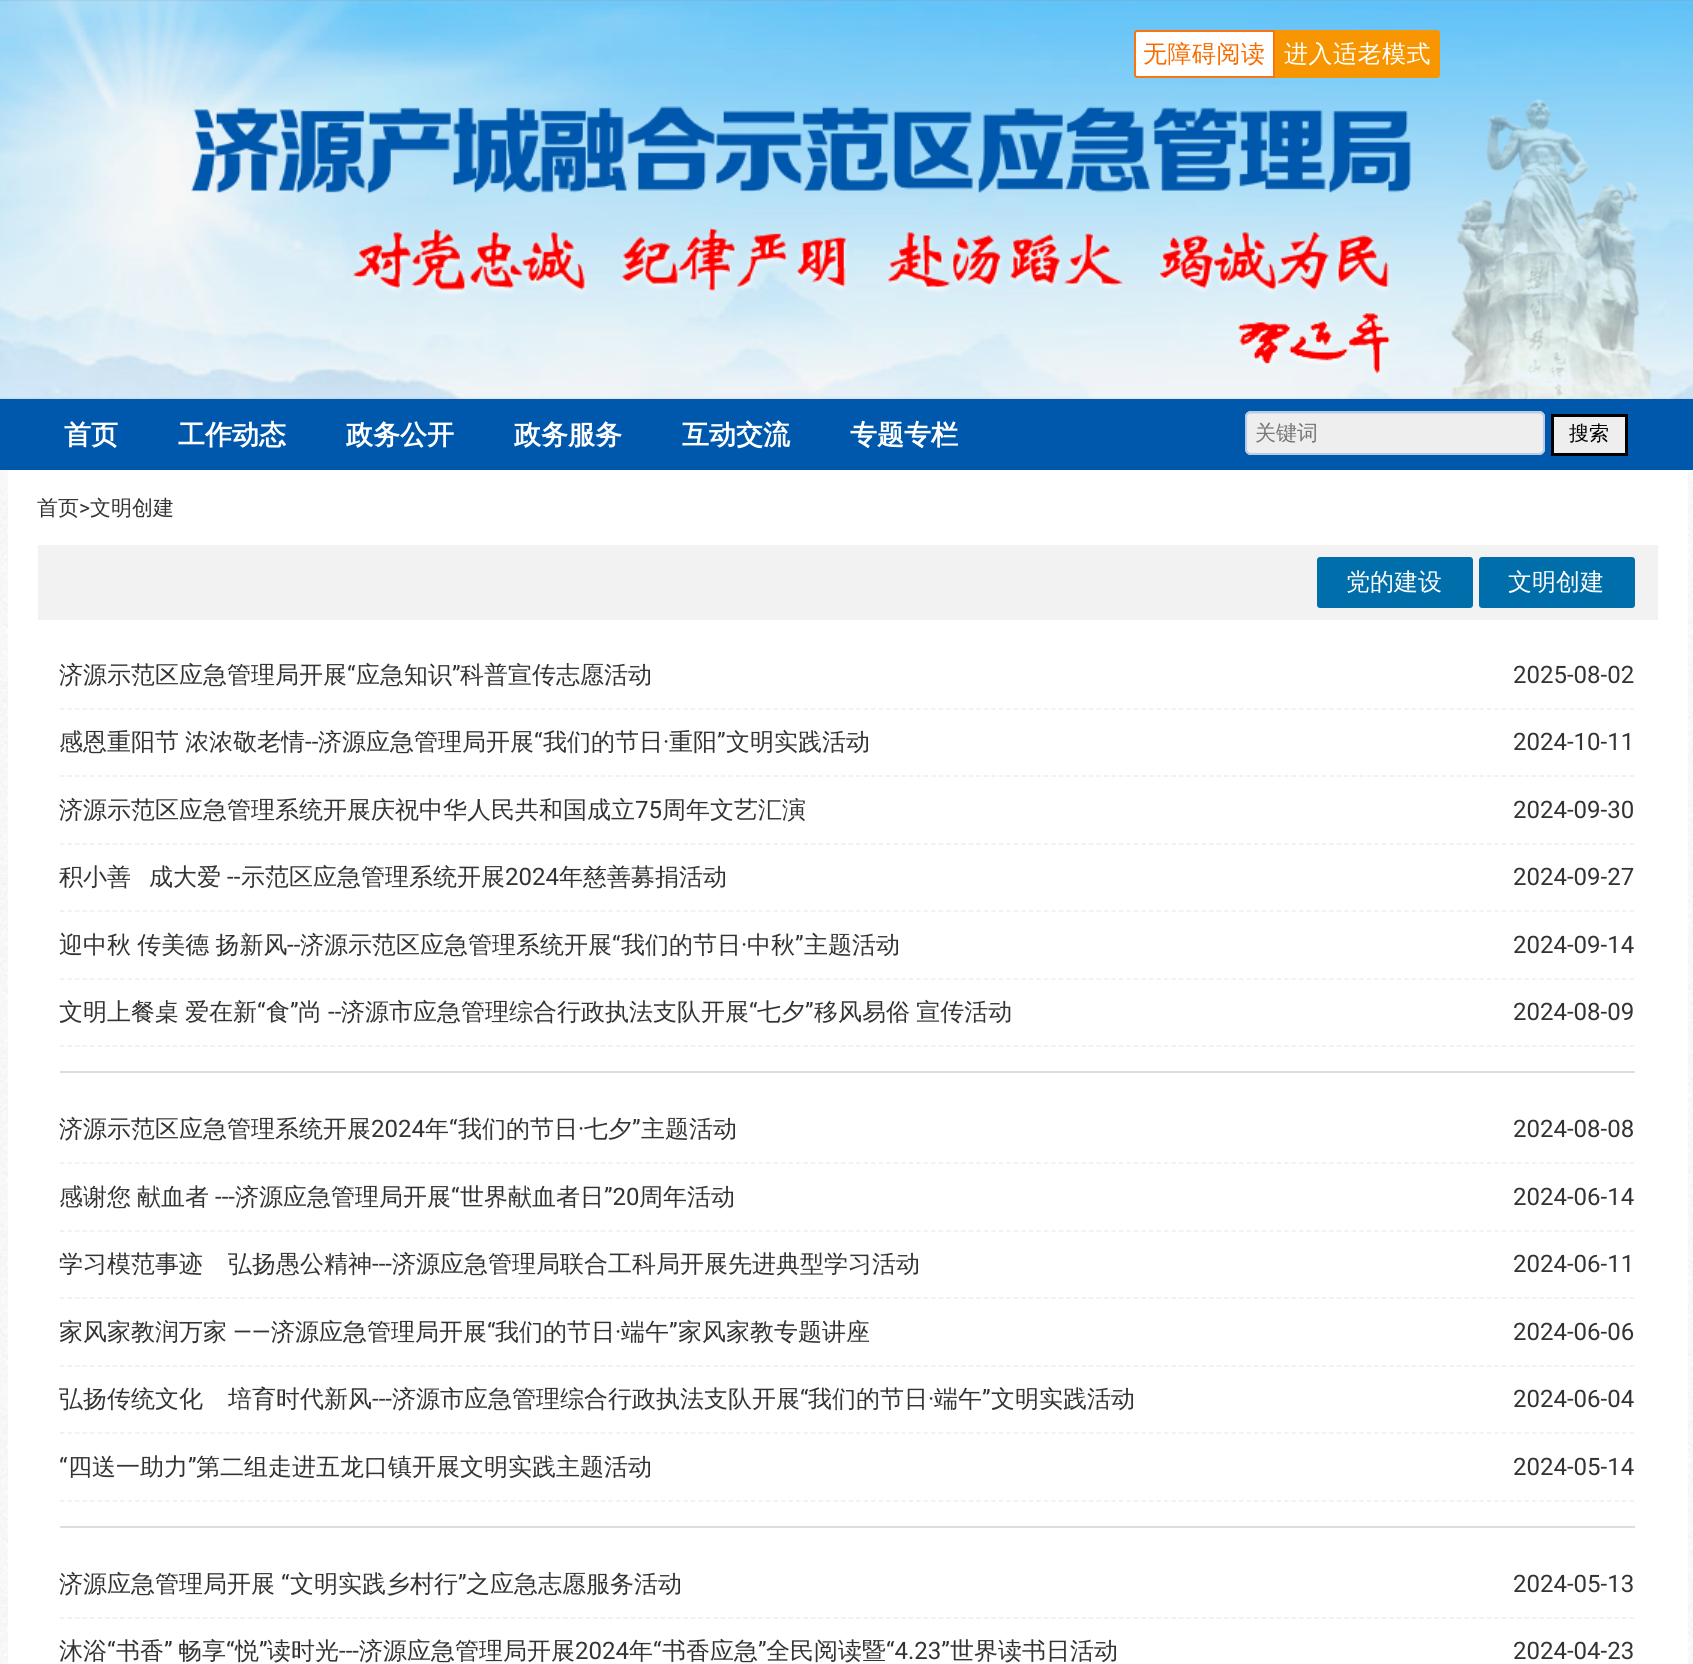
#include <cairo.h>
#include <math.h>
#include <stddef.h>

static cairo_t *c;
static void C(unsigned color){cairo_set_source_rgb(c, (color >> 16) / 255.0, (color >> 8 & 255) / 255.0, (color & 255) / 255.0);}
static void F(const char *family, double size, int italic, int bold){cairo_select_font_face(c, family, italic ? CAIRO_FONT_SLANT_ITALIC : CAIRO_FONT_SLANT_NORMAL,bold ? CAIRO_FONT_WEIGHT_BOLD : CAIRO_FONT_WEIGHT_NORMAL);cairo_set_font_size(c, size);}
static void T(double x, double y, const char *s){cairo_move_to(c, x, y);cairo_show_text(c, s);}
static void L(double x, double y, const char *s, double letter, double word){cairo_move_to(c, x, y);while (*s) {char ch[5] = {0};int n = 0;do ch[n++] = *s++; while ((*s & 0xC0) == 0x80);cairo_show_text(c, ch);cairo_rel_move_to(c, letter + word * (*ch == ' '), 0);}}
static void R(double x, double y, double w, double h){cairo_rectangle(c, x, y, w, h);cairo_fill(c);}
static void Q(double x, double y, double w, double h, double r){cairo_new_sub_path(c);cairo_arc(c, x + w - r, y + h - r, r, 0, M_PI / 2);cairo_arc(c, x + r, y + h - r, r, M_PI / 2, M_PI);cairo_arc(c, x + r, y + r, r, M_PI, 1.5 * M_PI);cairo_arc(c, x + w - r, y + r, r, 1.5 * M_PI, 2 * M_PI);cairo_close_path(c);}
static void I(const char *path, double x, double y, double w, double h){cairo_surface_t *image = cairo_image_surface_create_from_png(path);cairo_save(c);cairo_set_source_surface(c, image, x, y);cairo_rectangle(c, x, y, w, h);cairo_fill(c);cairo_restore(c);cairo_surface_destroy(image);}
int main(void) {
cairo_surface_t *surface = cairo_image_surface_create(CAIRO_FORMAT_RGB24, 1693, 1664);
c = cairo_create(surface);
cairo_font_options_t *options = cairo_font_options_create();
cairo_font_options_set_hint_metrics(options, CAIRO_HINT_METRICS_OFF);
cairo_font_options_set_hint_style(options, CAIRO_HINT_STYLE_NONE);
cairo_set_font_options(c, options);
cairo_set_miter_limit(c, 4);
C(0xffffff);
cairo_paint(c);
I("1.png",0,470,1693,1194);
I("2.png",0,0,1693,399);
C(0xffffff);
cairo_new_path(c);
cairo_move_to(c,1137,31);
cairo_line_to(c,1274,31);
cairo_line_to(c,1274,77);
cairo_line_to(c,1137,77);
cairo_curve_to(c,1136,77,1135,76,1135,75);
cairo_line_to(c,1135,33);
cairo_curve_to(c,1135,32,1136,31,1137,31);
cairo_close_path(c);
cairo_fill_preserve(c);
C(0xfc740d);
cairo_stroke(c);
F("WenQuanYi Zen Hei Medium",24,0,0);
C(0xf76b00);
L(1143,62,"无障碍阅读",.5,0);
C(0xf79600);
cairo_new_path(c);
cairo_move_to(c,1276,31);
cairo_line_to(c,1437,31);
cairo_curve_to(c,1438,31,1439,32,1439,33);
cairo_line_to(c,1439,75);
cairo_curve_to(c,1439,76,1438,77,1437,77);
cairo_line_to(c,1276,77);
cairo_close_path(c);
cairo_fill_preserve(c);
cairo_stroke(c);
C(0xffffff);
L(1284,62,"进入适老模式",.5,0);
C(0x0058ac);
R(0,399,1693,71);
F("WenQuanYi Zen Hei",27,0,1);
C(0xffffff);
T(64,444,"首页");
T(178,444,"工作动态");
T(346,444,"政务公开");
T(514,444,"政务服务");
T(682,444,"互动交流");
T(850,444,"专题专栏");
C(0xeeeeee);
Q(1245,411,300,44,6);
cairo_fill(c);
C(0xdcdcdc);
cairo_new_path(c);
cairo_move_to(c,1251,414);
cairo_line_to(c,1539,414);
cairo_curve_to(c,1541,414,1544,416,1544,418);
cairo_curve_to(c,1544,415,1542,413,1539,413);
cairo_line_to(c,1252,413);
cairo_curve_to(c,1250,413,1249,414,1248,415);
cairo_close_path(c);
cairo_fill(c);
Q(1246,412,298,42,5);
C(0xb8cce5);
cairo_stroke(c);
F("WenQuanYi Zen Hei Medium",21,0,0);
C(0x757575);
T(1255,440,"关键词");
C(0xeeeeee);
cairo_rectangle(c,1552.5,415.5,74,39);
cairo_fill_preserve(c);
C(0x000000);
cairo_set_line_width(c,3);
cairo_stroke(c);
F("WenQuanYi Zen Hei Medium",20,0,0);
T(1569,440,"搜索");
C(0xffffff);
R(8,470,1680,1194);
F("WenQuanYi Zen Hei Medium",21,0,0);
C(0x333333);
T(37,515,"首页");
F("Roboto",21,0,0);
T(79,515,">");
F("WenQuanYi Zen Hei Medium",21,0,0);
T(90,515,"文明创建");
C(0xf2f2f2);
R(38,545,1620,75);
C(0x006eab);
Q(1317,557,156,51,3);
cairo_fill(c);
F("WenQuanYi Zen Hei Medium",24,0,0);
C(0xffffff);
T(1346,590,"党的建设");
C(0x006eab);
Q(1479,557,156,51,3);
cairo_fill(c);
C(0xffffff);
T(1508,590,"文明创建");
cairo_new_path(c);
cairo_move_to(c,60,709);
cairo_line_to(c,1635,709);
C(0xeeeeee);
cairo_set_line_width(c,1.5);
cairo_set_dash(c,(double[]){4.5,3.01},2,0);
cairo_stroke(c);
C(0x333333);
T(59,683,"济源示范区应急管理局开展");
F("Roboto",24,0,0);
T(347,683,"“");
F("WenQuanYi Zen Hei Medium",24,0,0);
T(356,683,"应急知识");
F("Roboto",24,0,0);
T(452,683,"”");
F("WenQuanYi Zen Hei Medium",24,0,0);
T(460,683,"科普宣传志愿活动");
F("Roboto",24,0,0);
T(1513,683,"2025-08-02");
cairo_new_path(c);
cairo_move_to(c,60,776);
cairo_line_to(c,1635,776);
C(0xeeeeee);
cairo_stroke(c);
F("WenQuanYi Zen Hei Medium",24,0,0);
C(0x333333);
T(59,750,"感恩重阳节");
T(185,750,"浓浓敬老情");
F("Roboto",24,0,0);
T(305,750,"--");
F("WenQuanYi Zen Hei Medium",24,0,0);
T(318,750,"济源应急管理局开展");
F("Roboto",24,0,0);
T(534,750,"“");
F("WenQuanYi Zen Hei Medium",24,0,0);
T(543,750,"我们的节日");
F("Roboto",24,0,0);
T(663,750,"·");
F("WenQuanYi Zen Hei Medium",24,0,0);
T(669,750,"重阳");
F("Roboto",24,0,0);
T(717,750,"”");
F("WenQuanYi Zen Hei Medium",24,0,0);
T(726,750,"文明实践活动");
F("Roboto",24,0,0);
T(1513,750,"2024-10-11");
cairo_new_path(c);
cairo_move_to(c,60,844);
cairo_line_to(c,1635,844);
C(0xeeeeee);
cairo_stroke(c);
F("WenQuanYi Zen Hei Medium",24,0,0);
C(0x333333);
T(59,818,"济源示范区应急管理系统开展庆祝中华人民共和国成立");
F("Roboto",24,0,0);
T(635,818,"75");
F("WenQuanYi Zen Hei Medium",24,0,0);
T(662,818,"周年文艺汇演");
F("Roboto",24,0,0);
T(1513,818,"2024-09-30");
cairo_new_path(c);
cairo_move_to(c,60,911);
cairo_line_to(c,1635,911);
C(0xeeeeee);
cairo_stroke(c);
F("WenQuanYi Zen Hei Medium",24,0,0);
C(0x333333);
T(59,885,"积小善");
T(149,885,"成大爱");
F("Roboto",24,0,0);
T(227,885,"--");
F("WenQuanYi Zen Hei Medium",24,0,0);
T(241,885,"示范区应急管理系统开展");
F("Roboto",24,0,0);
T(505,885,"2024");
F("WenQuanYi Zen Hei Medium",24,0,0);
T(559,885,"年慈善募捐活动");
F("Roboto",24,0,0);
T(1513,885,"2024-09-27");
cairo_new_path(c);
cairo_move_to(c,60,979);
cairo_line_to(c,1635,979);
C(0xeeeeee);
cairo_stroke(c);
F("WenQuanYi Zen Hei Medium",24,0,0);
C(0x333333);
L(59,953,"迎中秋 传美德 扬新风",0,-1);
F("Roboto",24,0,0);
T(287,953,"--");
F("WenQuanYi Zen Hei Medium",24,0,0);
T(300,953,"济源示范区应急管理系统开展");
F("Roboto",24,0,0);
T(612,953,"“");
F("WenQuanYi Zen Hei Medium",24,0,0);
T(621,953,"我们的节日");
F("Roboto",24,0,0);
T(741,953,"·");
F("WenQuanYi Zen Hei Medium",24,0,0);
T(747,953,"中秋");
F("Roboto",24,0,0);
T(795,953,"”");
F("WenQuanYi Zen Hei Medium",24,0,0);
T(804,953,"主题活动");
F("Roboto",24,0,0);
T(1513,953,"2024-09-14");
cairo_new_path(c);
cairo_move_to(c,60,1046);
cairo_line_to(c,1635,1046);
C(0xeeeeee);
cairo_stroke(c);
F("WenQuanYi Zen Hei Medium",24,0,0);
C(0x333333);
T(59,1020,"文明上餐桌");
T(185,1020,"爱在新");
F("Roboto",24,0,0);
T(257,1020,"“");
F("WenQuanYi Zen Hei Medium",24,0,0);
T(266,1020,"食");
F("Roboto",24,0,0);
T(290,1020,"”");
F("WenQuanYi Zen Hei Medium",24,0,0);
T(298,1020,"尚");
F("Roboto",24,0,0);
T(328,1020,"--");
F("WenQuanYi Zen Hei Medium",24,0,0);
T(341,1020,"济源市应急管理综合行政执法支队开展");
F("Roboto",24,0,0);
T(749,1020,"“");
F("WenQuanYi Zen Hei Medium",24,0,0);
T(757,1020,"七夕");
F("Roboto",24,0,0);
T(805,1020,"”");
F("WenQuanYi Zen Hei Medium",24,0,0);
L(814,1020,"移风易俗 宣传活动",0,-1);
F("Roboto",24,0,0);
T(1513,1020,"2024-08-09");
C(0xdddddd);
R(60,1071,1575,2);
cairo_new_path(c);
cairo_move_to(c,60,1163);
cairo_line_to(c,1635,1163);
C(0xeeeeee);
cairo_stroke(c);
F("WenQuanYi Zen Hei Medium",24,0,0);
C(0x333333);
T(59,1137,"济源示范区应急管理系统开展");
F("Roboto",24,0,0);
T(371,1137,"2024");
F("WenQuanYi Zen Hei Medium",24,0,0);
T(425,1137,"年");
F("Roboto",24,0,0);
T(449,1137,"“");
F("WenQuanYi Zen Hei Medium",24,0,0);
T(458,1137,"我们的节日");
F("Roboto",24,0,0);
T(578,1137,"·");
F("WenQuanYi Zen Hei Medium",24,0,0);
T(584,1137,"七夕");
F("Roboto",24,0,0);
T(632,1137,"”");
F("WenQuanYi Zen Hei Medium",24,0,0);
T(641,1137,"主题活动");
F("Roboto",24,0,0);
T(1513,1137,"2024-08-08");
cairo_new_path(c);
cairo_move_to(c,60,1231);
cairo_line_to(c,1635,1231);
C(0xeeeeee);
cairo_stroke(c);
F("WenQuanYi Zen Hei Medium",24,0,0);
C(0x333333);
T(59,1205,"感谢您");
T(137,1205,"献血者");
F("Roboto",24,0,0);
T(215,1205,"---");
F("WenQuanYi Zen Hei Medium",24,0,0);
T(235,1205,"济源应急管理局开展");
F("Roboto",24,0,0);
T(451,1205,"“");
F("WenQuanYi Zen Hei Medium",24,0,0);
T(460,1205,"世界献血者日");
F("Roboto",24,0,0);
T(604,1205,"”20");
F("WenQuanYi Zen Hei Medium",24,0,0);
T(639,1205,"周年活动");
F("Roboto",24,0,0);
T(1513,1205,"2024-06-14");
cairo_new_path(c);
cairo_move_to(c,60,1298);
cairo_line_to(c,1635,1298);
C(0xeeeeee);
cairo_stroke(c);
F("WenQuanYi Zen Hei Medium",24,0,0);
C(0x333333);
T(59,1272,"学习模范事迹");
T(228,1272,"弘扬愚公精神");
F("Roboto",24,0,0);
T(372,1272,"---");
F("WenQuanYi Zen Hei Medium",24,0,0);
T(392,1272,"济源应急管理局联合工科局开展先进典型学习活动");
F("Roboto",24,0,0);
T(1513,1272,"2024-06-11");
cairo_new_path(c);
cairo_move_to(c,60,1366);
cairo_line_to(c,1635,1366);
C(0xeeeeee);
cairo_stroke(c);
F("WenQuanYi Zen Hei Medium",24,0,0);
C(0x333333);
T(59,1340,"家风家教润万家");
F("Roboto",24,0,0);
T(233,1340,"——");
F("WenQuanYi Zen Hei Medium",24,0,0);
T(271,1340,"济源应急管理局开展");
F("Roboto",24,0,0);
T(487,1340,"“");
F("WenQuanYi Zen Hei Medium",24,0,0);
T(495,1340,"我们的节日");
F("Roboto",24,0,0);
T(615,1340,"·");
F("WenQuanYi Zen Hei Medium",24,0,0);
T(621,1340,"端午");
F("Roboto",24,0,0);
T(669,1340,"”");
F("WenQuanYi Zen Hei Medium",24,0,0);
T(678,1340,"家风家教专题讲座");
F("Roboto",24,0,0);
T(1513,1340,"2024-06-06");
cairo_new_path(c);
cairo_move_to(c,60,1433);
cairo_line_to(c,1635,1433);
C(0xeeeeee);
cairo_stroke(c);
F("WenQuanYi Zen Hei Medium",24,0,0);
C(0x333333);
T(59,1407,"弘扬传统文化");
T(228,1407,"培育时代新风");
F("Roboto",24,0,0);
T(372,1407,"---");
F("WenQuanYi Zen Hei Medium",24,0,0);
T(392,1407,"济源市应急管理综合行政执法支队开展");
F("Roboto",24,0,0);
T(800,1407,"“");
F("WenQuanYi Zen Hei Medium",24,0,0);
T(808,1407,"我们的节日");
F("Roboto",24,0,0);
T(928,1407,"·");
F("WenQuanYi Zen Hei Medium",24,0,0);
T(934,1407,"端午");
F("Roboto",24,0,0);
T(982,1407,"”");
F("WenQuanYi Zen Hei Medium",24,0,0);
T(991,1407,"文明实践活动");
F("Roboto",24,0,0);
T(1513,1407,"2024-06-04");
cairo_new_path(c);
cairo_move_to(c,60,1501);
cairo_line_to(c,1635,1501);
C(0xeeeeee);
cairo_stroke(c);
C(0x333333);
T(59,1475,"“");
F("WenQuanYi Zen Hei Medium",24,0,0);
T(68,1475,"四送一助力");
F("Roboto",24,0,0);
T(188,1475,"”");
F("WenQuanYi Zen Hei Medium",24,0,0);
T(196,1475,"第二组走进五龙口镇开展文明实践主题活动");
F("Roboto",24,0,0);
T(1513,1475,"2024-05-14");
C(0xdddddd);
R(60,1526,1575,2);
cairo_new_path(c);
cairo_move_to(c,60,1618);
cairo_line_to(c,1635,1618);
C(0xeeeeee);
cairo_stroke(c);
F("WenQuanYi Zen Hei Medium",24,0,0);
C(0x333333);
T(59,1592,"济源应急管理局开展");
F("Roboto",24,0,0);
T(281,1592,"“");
F("WenQuanYi Zen Hei Medium",24,0,0);
T(290,1592,"文明实践乡村行");
F("Roboto",24,0,0);
T(458,1592,"”");
F("WenQuanYi Zen Hei Medium",24,0,0);
T(466,1592,"之应急志愿服务活动");
F("Roboto",24,0,0);
T(1513,1592,"2024-05-13");
F("WenQuanYi Zen Hei Medium",24,0,0);
T(59,1659,"沐浴");
F("Roboto",24,0,0);
T(107,1659,"“");
F("WenQuanYi Zen Hei Medium",24,0,0);
T(116,1659,"书香");
F("Roboto",24,0,0);
T(164,1659,"”");
F("WenQuanYi Zen Hei Medium",24,0,0);
T(178,1659,"畅享");
F("Roboto",24,0,0);
T(226,1659,"“");
F("WenQuanYi Zen Hei Medium",24,0,0);
T(235,1659,"悦");
F("Roboto",24,0,0);
T(259,1659,"”");
F("WenQuanYi Zen Hei Medium",24,0,0);
T(267,1659,"读时光");
F("Roboto",24,0,0);
T(339,1659,"---");
F("WenQuanYi Zen Hei Medium",24,0,0);
T(359,1659,"济源应急管理局开展");
F("Roboto",24,0,0);
T(575,1659,"2024");
F("WenQuanYi Zen Hei Medium",24,0,0);
T(629,1659,"年");
F("Roboto",24,0,0);
T(653,1659,"“");
F("WenQuanYi Zen Hei Medium",24,0,0);
T(662,1659,"书香应急");
F("Roboto",24,0,0);
T(758,1659,"”");
F("WenQuanYi Zen Hei Medium",24,0,0);
T(766,1659,"全民阅读暨");
F("Roboto",24,0,0);
T(886,1659,"“4.23”");
F("WenQuanYi Zen Hei Medium",24,0,0);
T(950,1659,"世界读书日活动");
F("Roboto",24,0,0);
T(1513,1659,"2024-04-23");
cairo_surface_write_to_png(surface, "o.png");
cairo_font_options_destroy(options);
cairo_destroy(c);
cairo_surface_destroy(surface);
return 0;
}
